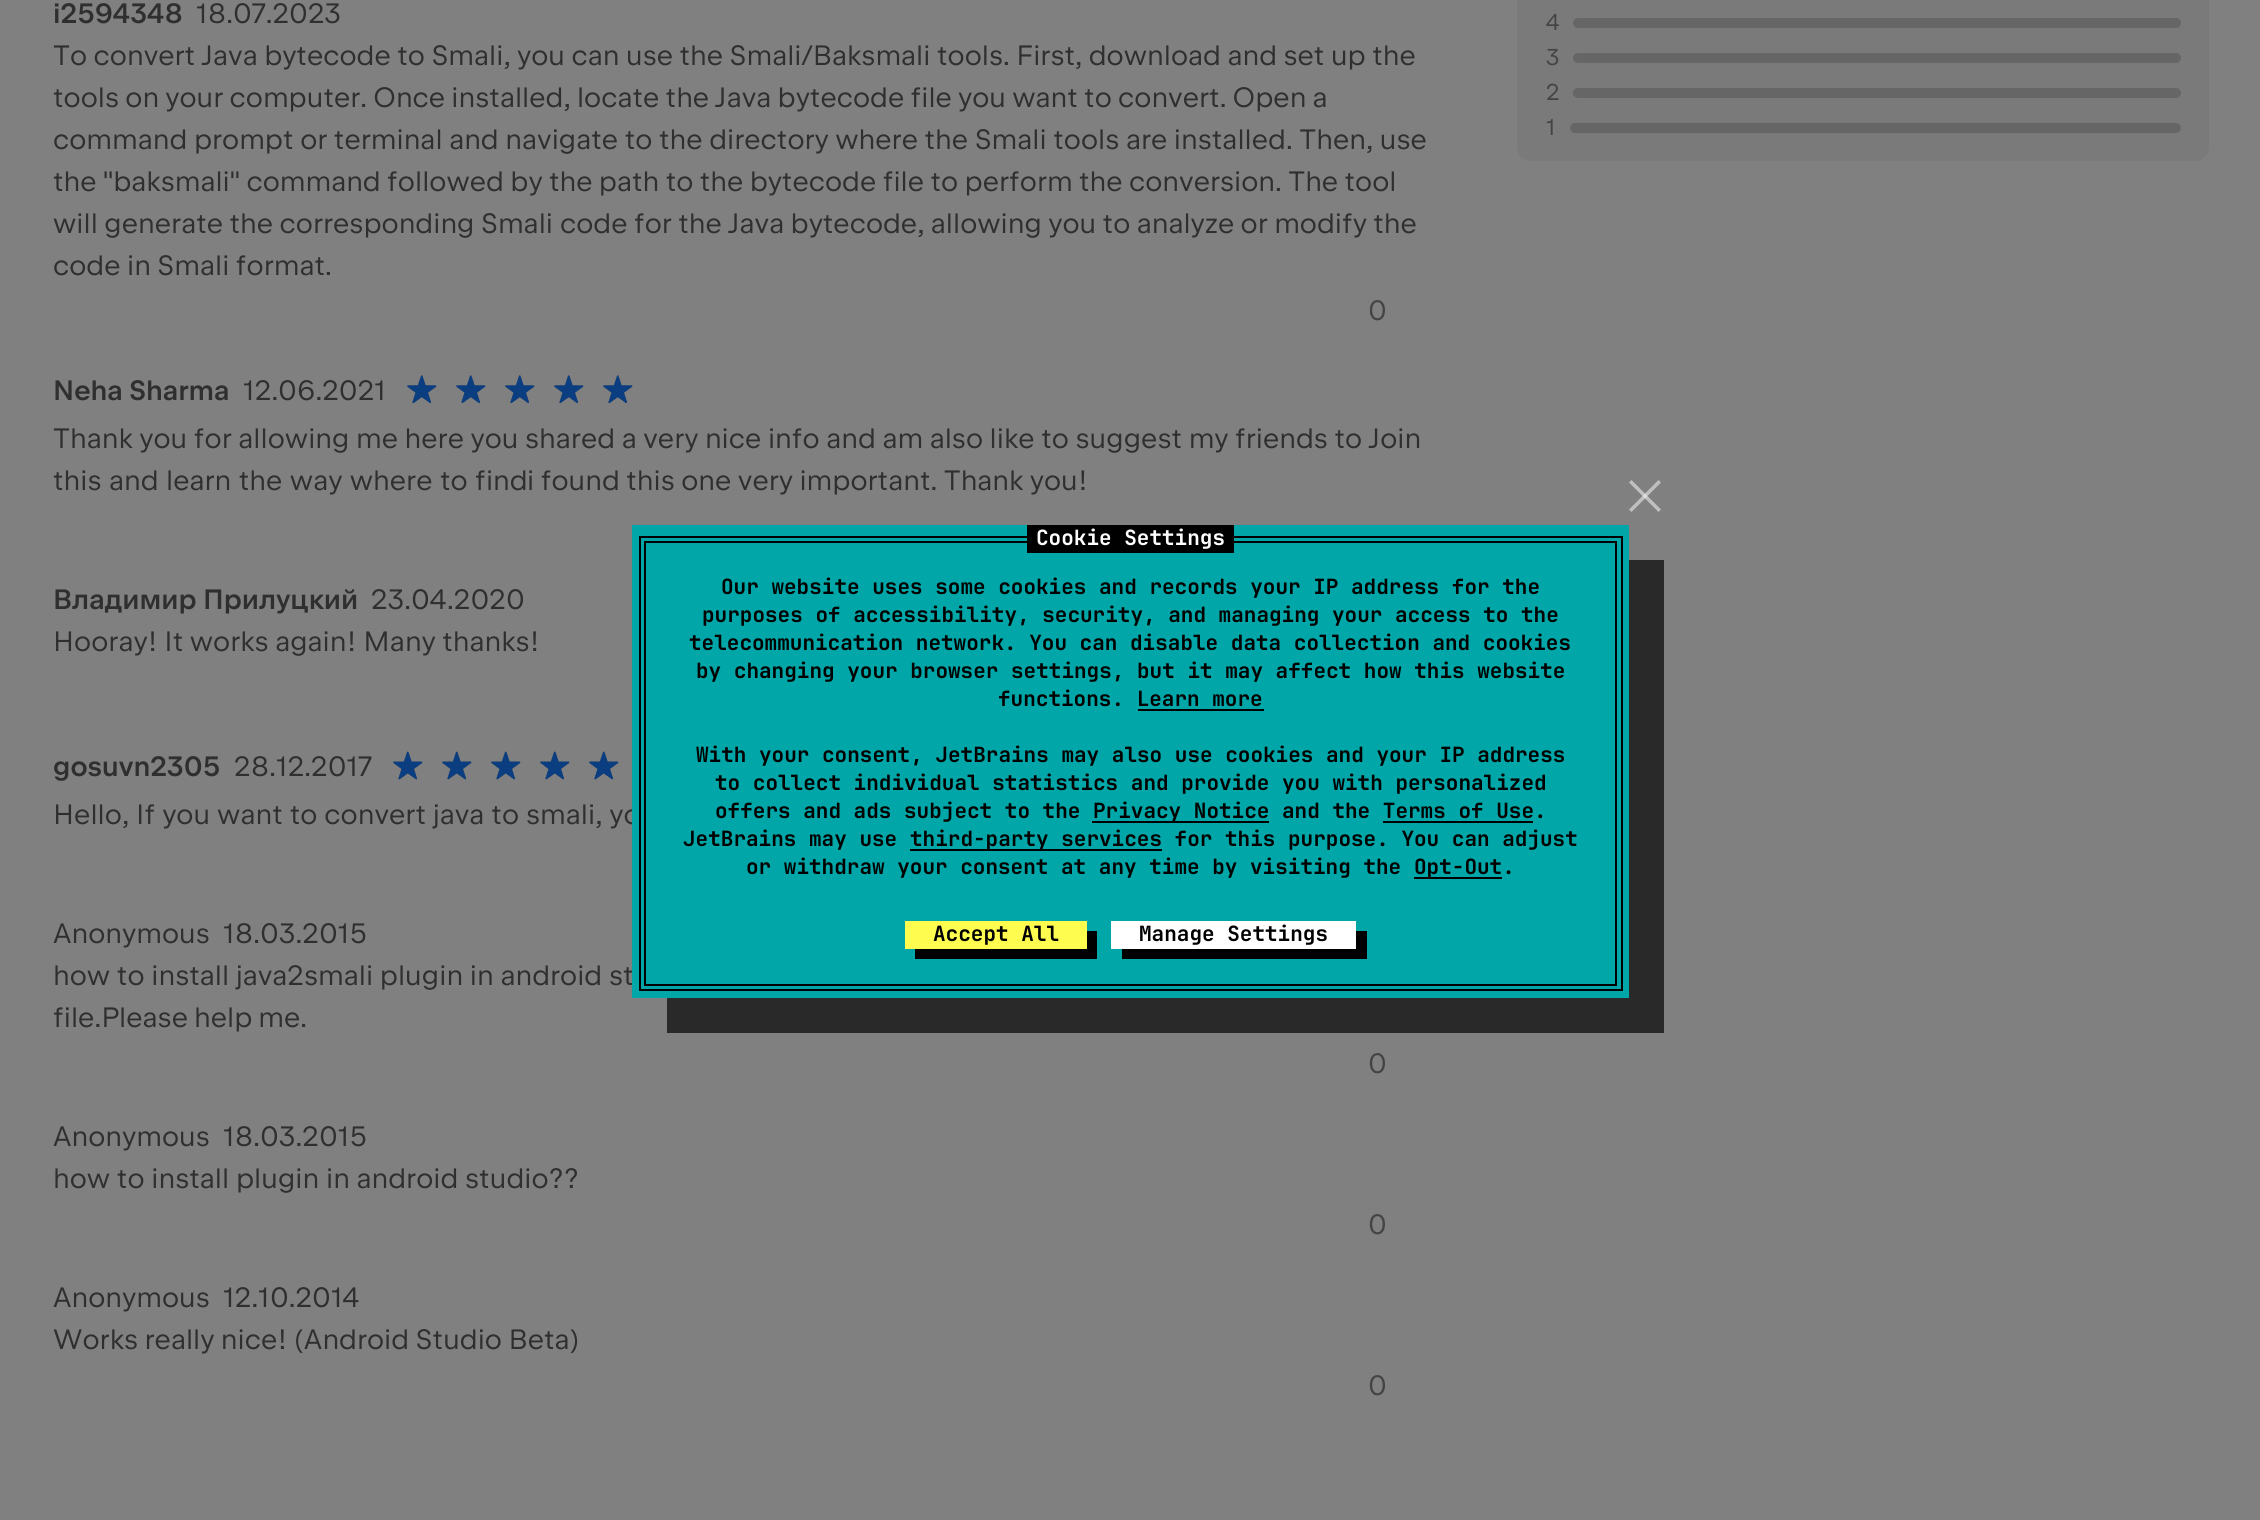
#include <cairo.h>
#include <math.h>
#include <stddef.h>

static cairo_t *c;
static void C(unsigned color){cairo_set_source_rgb(c, (color >> 16) / 255.0, (color >> 8 & 255) / 255.0, (color & 255) / 255.0);}
static void F(const char *family, double size, int italic, int bold){cairo_select_font_face(c, family, italic ? CAIRO_FONT_SLANT_ITALIC : CAIRO_FONT_SLANT_NORMAL,bold ? CAIRO_FONT_WEIGHT_BOLD : CAIRO_FONT_WEIGHT_NORMAL);cairo_set_font_size(c, size);}
static void T(double x, double y, const char *s){cairo_move_to(c, x, y);cairo_show_text(c, s);}
static void L(double x, double y, const char *s, double letter, double word){cairo_move_to(c, x, y);while (*s) {char ch[5] = {0};int n = 0;do ch[n++] = *s++; while ((*s & 0xC0) == 0x80);cairo_show_text(c, ch);cairo_rel_move_to(c, letter + word * (*ch == ' '), 0);}}
static void R(double x, double y, double w, double h){cairo_rectangle(c, x, y, w, h);cairo_fill(c);}
static void Q(double x, double y, double w, double h, double r){cairo_new_sub_path(c);cairo_arc(c, x + w - r, y + h - r, r, 0, M_PI / 2);cairo_arc(c, x + r, y + h - r, r, M_PI / 2, M_PI);cairo_arc(c, x + r, y + r, r, M_PI, 1.5 * M_PI);cairo_arc(c, x + w - r, y + r, r, 1.5 * M_PI, 2 * M_PI);cairo_close_path(c);}
static void I(const char *path, double x, double y, double w, double h){cairo_surface_t *image = cairo_image_surface_create_from_png(path);cairo_save(c);cairo_set_source_surface(c, image, x, y);cairo_rectangle(c, x, y, w, h);cairo_fill(c);cairo_restore(c);cairo_surface_destroy(image);}
int main(void) {
cairo_surface_t *surface = cairo_image_surface_create(CAIRO_FORMAT_RGB24, 2260, 1520);
c = cairo_create(surface);
cairo_font_options_t *options = cairo_font_options_create();
cairo_font_options_set_hint_metrics(options, CAIRO_HINT_METRICS_OFF);
cairo_font_options_set_hint_style(options, CAIRO_HINT_STYLE_NONE);
cairo_set_font_options(c, options);
cairo_set_miter_limit(c, 4);
C(0x808080);
cairo_paint(c);
F("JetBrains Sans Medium",28,0,0);
C(0x2f2f30);
T(53,23,"i2594348");
F("JetBrains Sans",28,0,0);
L(196,23,"18.07.2023",.04,0);
L(53,65,"To convert Java bytecode to Smali, you can use the Smali/Baksmali tools. First, download and set up the",.04,-.5);
L(53,107,"tools on your computer. Once installed, locate the Java bytecode file you want to convert. Open a",.04,-.75);
L(53,149,"command prompt or terminal and navigate to the directory where the Smali tools are installed. Then, use",.04,-.4);
L(53,191,"the \"baksmali\" command followed by the path to the bytecode file to perform the conversion. The tool",.04,-.6);
L(53,233,"will generate the corresponding Smali",.04,-.5);
L(560,233,"code for the Java bytecode, allowing you to analyze or modify the",.04,-.6);
L(53,275,"code in Smali format.",.04,-.5);
C(0x444444);
L(1368,320,"0",.04,0);
F("JetBrains Sans Medium",28,0,0);
C(0x2f2f30);
T(53,400,"Neha Sharma");
F("JetBrains Sans",28,0,0);
L(243,400,"12.06.2021",.04,0);
I("1.png",407,375,30,28);
I("2.png",407,375,30,29);
I("1.png",456,375,30,28);
I("2.png",456,375,30,29);
I("1.png",505,375,30,28);
I("2.png",505,375,30,29);
I("1.png",554,375,30,28);
I("2.png",554,375,30,29);
I("1.png",603,375,30,28);
I("2.png",603,375,30,29);
L(53,448,"Thank you for allowing me here you shared a very nice info and am also like to suggest my friends to Join",.04,-.4);
L(53,490,"this and learn the way where to find",.04,.5);
L(527,490,"i found this one very important. Thank you!",.04,-.5);
F("JetBrains Sans Medium",28,0,0);
T(53,609,"Владимир Прилуцкий");
F("JetBrains Sans",28,0,0);
L(371,609,"23.04.2020",.04,0);
L(53,651,"Hooray! It works again! Many thanks!",.04,-.5);
F("JetBrains Sans Medium",28,0,0);
T(53,776,"gosuvn2305");
F("JetBrains Sans",28,0,0);
L(234,776,"28.12.2017",.04,0);
I("3.png",393,751,30,29);
I("4.png",393,751,30,29);
I("3.png",442,751,30,29);
I("4.png",442,751,30,29);
I("3.png",491,751,30,29);
I("4.png",491,751,30,29);
I("3.png",540,751,30,29);
I("4.png",540,751,30,29);
I("3.png",589,751,30,29);
I("4.png",589,751,30,29);
L(53,824,"Hello, If you want to convert java to smali, yo",.04,0);
L(53,943,"Anonymous",.04,0);
L(223,943,"18.03.2015",.04,0);
L(53,985,"how to install java2smali plugin in android st",.04,-.25);
L(53,1027,"file.Please help me.",.04,-1);
C(0x444444);
L(1368,1073,"0",.04,0);
C(0x2f2f30);
L(53,1146,"Anonymous",.04,0);
L(223,1146,"18.03.2015",.04,0);
L(53,1188,"how to install plugin in android studio?\077",.04,-.25);
C(0x444444);
L(1368,1234,"0",.04,0);
C(0x2f2f30);
L(53,1307,"Anonymous",.04,0);
L(223,1307,"12.10.2014",.04,0);
L(53,1349,"Works really nice! (Android Studio Beta)",.04,-.5);
C(0x444444);
L(1368,1395,"0",.04,0);
C(0x7a7a7a);
Q(1517,-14,692,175,14);
cairo_fill(c);
F("JetBrains Sans",23,0,0);
C(0x444444);
T(1546,30,"4");
C(0x666666);
Q(1573,18,608,10,5);
cairo_fill(c);
C(0x444444);
T(1546,65,"3");
C(0x666666);
Q(1573,53,608,10,5);
cairo_fill(c);
C(0x444444);
T(1546,100,"2");
C(0x666666);
Q(1573,88,608,10,5);
cairo_fill(c);
C(0x444444);
T(1546,135,"1");
C(0x666666);
Q(1570,123,611,10,5);
cairo_fill(c);
C(0x292929);
cairo_new_path(c);
cairo_move_to(c,667,998);
cairo_line_to(c,667,1033);
cairo_line_to(c,1664,1033);
cairo_line_to(c,1664,560);
cairo_line_to(c,1629,560);
cairo_line_to(c,1629,998);
cairo_close_path(c);
cairo_fill(c);
C(0x01a7a8);
R(632,525,997,473);
C(0xbfbfbf);
cairo_new_path(c);
cairo_move_to(c,1629,509.5);
cairo_line_to(c,1658.5,480);
cairo_line_to(c,1661,482.5);
cairo_line_to(c,1631.5,512);
cairo_close_path(c);
cairo_fill(c);
cairo_set_source_rgba(c,1,1,1,0.5);
cairo_new_path(c);
cairo_move_to(c,1631.5,480);
cairo_line_to(c,1661,509.5);
cairo_line_to(c,1658.5,512);
cairo_line_to(c,1629,482.5);
cairo_close_path(c);
cairo_fill(c);
C(0x000000);
R(644,541,973,2);
R(1615,541,2,444);
R(644,541,2,380);
R(639,536,983,2);
R(1027,525,207,28);
F("JetBrains Mono",21,0,1);
C(0xffffff);
T(1036,545,"Cookie Settings");
C(0x000000);
R(1621,536,2,455);
R(639,536,2,383);
T(721,594,"Our website uses some cookies and records your IP address for the");
T(702,622,"purposes of accessibility, security, and managing your access to the");
T(689,650,"telecommunication network. You can disable data collection and cookies");
T(696,678,"by changing your browser settings, but it may affect how this website");
T(998,706,"functions. Learn more");
R(1138,709,126,2);
T(696,762,"With your consent, JetBrains may also use cookies and your IP address");
T(715,790,"to collect individual statistics and provide you with personalized");
T(715,818,"offers and ads subject to the");
R(1092,821,177,2);
T(1093,818,"Privacy Notice and the Terms of Use.");
R(1383,821,150,2);
T(683,846,"JetBrains may use");
R(910,849,252,2);
T(910,846,"third-party services for this purpose. You can adjust");
T(746,874,"or withdraw your consent at any time by visiting the");
R(1414,877,88,2);
T(1414,874,"Opt-Out.");
R(644,984,973,2);
R(644,921,2,64);
R(639,989,983,2);
R(639,919,2,72);
cairo_new_path(c);
cairo_move_to(c,915,948);
cairo_line_to(c,915,959);
cairo_line_to(c,1097,959);
cairo_line_to(c,1097,931);
cairo_line_to(c,1087,931);
cairo_line_to(c,1087,948);
cairo_close_path(c);
cairo_fill(c);
C(0xfefc4f);
R(905,921,182,28);
C(0x000000);
T(933,941,"Accept All");
cairo_new_path(c);
cairo_move_to(c,1122,948);
cairo_line_to(c,1122,959);
cairo_line_to(c,1367,959);
cairo_line_to(c,1367,931);
cairo_line_to(c,1356,931);
cairo_line_to(c,1356,948);
cairo_close_path(c);
cairo_fill(c);
C(0xffffff);
R(1111,921,245,28);
C(0x000000);
T(1139,941,"Manage Settings");
cairo_surface_write_to_png(surface, "o.png");
cairo_font_options_destroy(options);
cairo_destroy(c);
cairo_surface_destroy(surface);
return 0;
}
